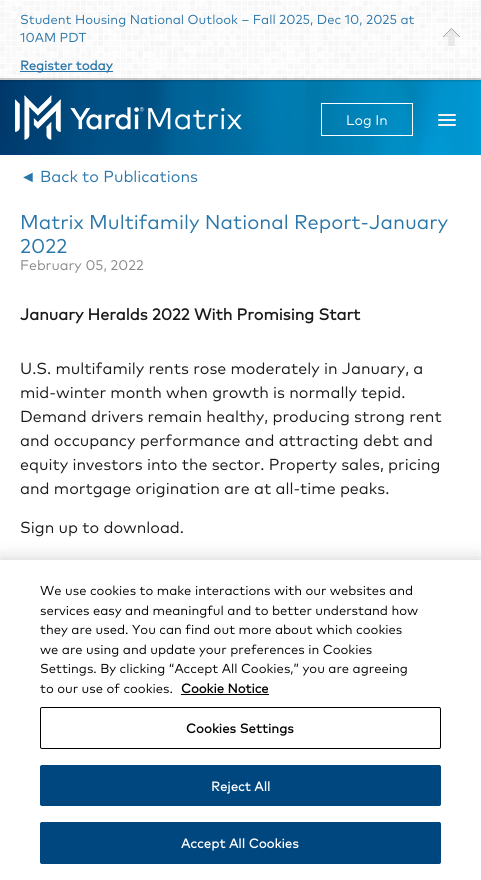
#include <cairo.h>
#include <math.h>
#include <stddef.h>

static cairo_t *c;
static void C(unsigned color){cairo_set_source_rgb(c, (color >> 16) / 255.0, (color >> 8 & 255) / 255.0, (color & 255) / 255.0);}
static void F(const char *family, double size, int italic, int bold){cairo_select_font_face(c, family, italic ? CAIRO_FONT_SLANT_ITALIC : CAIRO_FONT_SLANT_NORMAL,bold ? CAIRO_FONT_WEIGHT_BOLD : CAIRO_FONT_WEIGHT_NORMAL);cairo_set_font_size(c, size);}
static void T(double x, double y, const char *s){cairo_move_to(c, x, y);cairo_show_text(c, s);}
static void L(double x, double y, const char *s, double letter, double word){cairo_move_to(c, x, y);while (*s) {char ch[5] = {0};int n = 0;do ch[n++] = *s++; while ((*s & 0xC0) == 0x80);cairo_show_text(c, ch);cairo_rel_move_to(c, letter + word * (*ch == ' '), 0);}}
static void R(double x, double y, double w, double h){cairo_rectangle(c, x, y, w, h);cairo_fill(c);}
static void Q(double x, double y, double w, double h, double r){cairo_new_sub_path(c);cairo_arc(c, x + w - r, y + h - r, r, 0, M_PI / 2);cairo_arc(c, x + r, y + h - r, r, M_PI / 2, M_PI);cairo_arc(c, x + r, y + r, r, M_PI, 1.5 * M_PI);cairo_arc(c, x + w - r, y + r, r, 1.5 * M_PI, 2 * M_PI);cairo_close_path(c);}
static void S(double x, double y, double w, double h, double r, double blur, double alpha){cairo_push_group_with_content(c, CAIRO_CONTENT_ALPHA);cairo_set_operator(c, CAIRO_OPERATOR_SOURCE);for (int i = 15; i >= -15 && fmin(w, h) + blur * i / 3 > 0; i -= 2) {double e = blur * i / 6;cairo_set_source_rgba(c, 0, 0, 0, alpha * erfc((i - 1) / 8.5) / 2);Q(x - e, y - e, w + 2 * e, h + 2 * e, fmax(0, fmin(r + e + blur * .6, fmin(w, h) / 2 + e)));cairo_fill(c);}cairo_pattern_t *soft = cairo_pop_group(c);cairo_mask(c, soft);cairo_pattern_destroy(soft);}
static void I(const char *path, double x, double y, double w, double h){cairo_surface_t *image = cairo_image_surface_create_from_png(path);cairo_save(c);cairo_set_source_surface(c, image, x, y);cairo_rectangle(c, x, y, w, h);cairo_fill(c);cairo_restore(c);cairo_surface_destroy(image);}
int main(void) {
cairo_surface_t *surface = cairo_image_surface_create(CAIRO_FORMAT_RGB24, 481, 880);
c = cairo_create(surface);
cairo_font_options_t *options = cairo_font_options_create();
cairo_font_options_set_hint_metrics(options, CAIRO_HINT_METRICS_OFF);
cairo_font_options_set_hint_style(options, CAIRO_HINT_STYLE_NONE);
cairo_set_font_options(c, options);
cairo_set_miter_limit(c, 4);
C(0xffffff);
cairo_paint(c);
I("1.png",0,0,481,80);
F("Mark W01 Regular",13,0,0);
C(0x2b76a9);
T(20,24,"Student Housing National Outlook – Fall 2025, Dec 10, 2025 at");
T(20,42,"10AM PDT");
R(20,71,93,1);
F("Mark W01 Regular",13,0,1);
T(20,70,"Register today");
I("2.png",443,28,17,18);
I("4.png",0,80,481,75);
I("3.png",0,78,481,4);
I("5.png",15,95,227,45);
C(0xf5f5f5);
Q(438,114,18,2,1);
cairo_fill(c);
Q(438,119,18,2,1);
cairo_fill(c);
Q(438,124,18,2,1);
cairo_fill(c);
cairo_rectangle(c,321.5,103.5,91,32);
C(0xffffff);
cairo_set_line_width(c,1);
cairo_stroke(c);
F("Mark W01 Regular",14,0,0);
T(346,125,"Log In");
F("Liberation Sans",16,0,0);
C(0x2b76a9);
T(20,182,"◄");
F("Mark W01 Regular",16,0,0);
T(40,182,"Back to Publications");
F("Mark W01 Regular",20,0,0);
T(20,229,"Matrix Multifamily National Report-January");
T(20,253,"2022");
F("Mark W01 Regular",14,0,0);
C(0x888888);
T(20,270,"February 05, 2022");
F("Mark W01 Regular",16,0,1);
C(0x1a1a1a);
T(20,320,"January Heralds 2022 With Promising Start");
F("Mark W01 Regular",16,0,0);
T(20,374,"U.S. multifamily rents rose moderately in January, a");
T(20,398,"mid-winter month when growth is normally tepid.");
T(20,422,"Demand drivers remain healthy, producing strong rent");
T(20,446,"and occupancy performance and attracting debt and");
T(20,470,"equity investors into the sector. Property sales, pricing");
T(20,494,"and mortgage origination are at all-time peaks.");
T(20,533,"Sign up to download.");
C(0x000000);
S(0,560,481,320,0,9,.2);
C(0xffffff);
R(0,560,481,320);
F("Mark W01 Regular",13,0,0);
C(0x000000);
T(40,595,"We use cookies to make interactions with our websites and");
T(40,615,"services easy and meaningful and to better understand how");
T(40,634,"they are used. You can find out more about which cookies");
T(40,654,"we are using and update your preferences in Cookies");
T(40,673,"Settings. By clicking “Accept All Cookies,” you are agreeing");
T(40,693,"to our use of cookies.");
F("Mark W01 Regular",13,0,1);
T(181,693,"Cookie Notice");
R(181,694,88,1);
Q(40.5,707.5,400,41,1.5);
cairo_stroke(c);
L(186,733,"Cookies Settings",.1,0);
C(0x00467f);
Q(40.5,765.5,400,40,1.5);
cairo_fill_preserve(c);
cairo_stroke(c);
C(0xffffff);
L(211,791,"Reject All",.1,0);
C(0x00467f);
Q(40.5,822.5,400,41,1.5);
cairo_fill_preserve(c);
cairo_stroke(c);
C(0xffffff);
L(181,848,"Accept All Cookies",.1,0);
cairo_surface_write_to_png(surface, "o.png");
cairo_font_options_destroy(options);
cairo_destroy(c);
cairo_surface_destroy(surface);
return 0;
}
